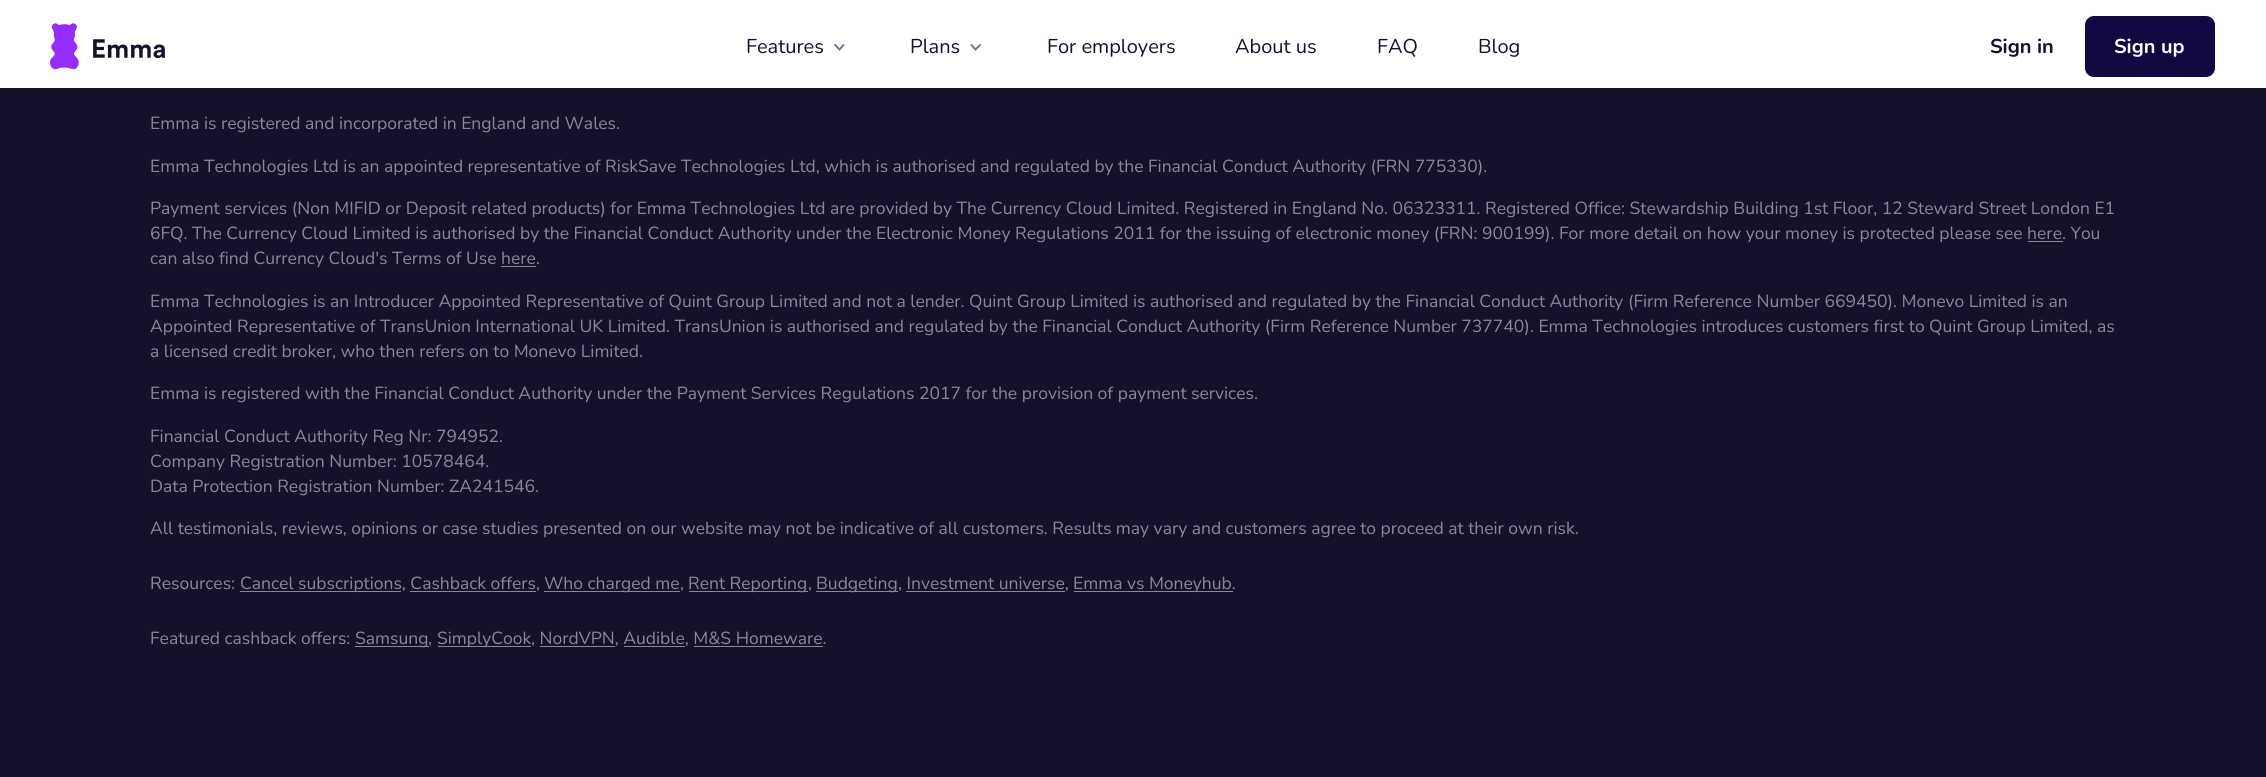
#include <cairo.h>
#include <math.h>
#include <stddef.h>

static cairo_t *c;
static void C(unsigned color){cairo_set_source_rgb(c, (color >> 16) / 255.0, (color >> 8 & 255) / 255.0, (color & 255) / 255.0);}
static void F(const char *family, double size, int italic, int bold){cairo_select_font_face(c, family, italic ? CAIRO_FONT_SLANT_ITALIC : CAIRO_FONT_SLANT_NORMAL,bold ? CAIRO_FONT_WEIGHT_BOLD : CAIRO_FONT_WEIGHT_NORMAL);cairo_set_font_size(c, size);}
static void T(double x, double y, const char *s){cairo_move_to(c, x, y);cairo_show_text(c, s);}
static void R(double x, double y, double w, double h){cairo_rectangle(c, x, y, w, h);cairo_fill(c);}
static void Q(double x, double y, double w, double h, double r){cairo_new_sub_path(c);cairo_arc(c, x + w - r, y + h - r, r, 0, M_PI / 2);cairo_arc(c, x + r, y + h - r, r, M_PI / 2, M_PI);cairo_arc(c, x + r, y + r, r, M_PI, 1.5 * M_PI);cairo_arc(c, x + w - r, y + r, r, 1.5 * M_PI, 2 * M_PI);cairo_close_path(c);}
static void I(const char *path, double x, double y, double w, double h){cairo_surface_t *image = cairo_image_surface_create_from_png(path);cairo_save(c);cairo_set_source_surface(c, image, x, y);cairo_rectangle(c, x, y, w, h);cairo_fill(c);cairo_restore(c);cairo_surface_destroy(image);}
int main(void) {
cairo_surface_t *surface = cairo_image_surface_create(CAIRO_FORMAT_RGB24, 2266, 777);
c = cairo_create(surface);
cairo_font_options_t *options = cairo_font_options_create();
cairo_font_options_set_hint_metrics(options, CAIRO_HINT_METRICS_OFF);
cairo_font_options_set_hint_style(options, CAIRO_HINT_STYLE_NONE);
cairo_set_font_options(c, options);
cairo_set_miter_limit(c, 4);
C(0x17102a);
cairo_paint(c);
C(0xffffff);
R(0,0,2266,88);
I("1.png",50,23,115,47);
F("Nunito",20,0,0);
C(0x17102a);
T(746,53,"Features");
cairo_new_path(c);
cairo_move_to(c,835,45);
cairo_line_to(c,839.5,49.5);
cairo_line_to(c,843.5,45);
C(0x6e7191);
cairo_set_line_width(c,1.9);
cairo_set_line_cap(c,CAIRO_LINE_CAP_ROUND);
cairo_stroke(c);
C(0x17102a);
T(910,53,"Plans");
cairo_new_path(c);
cairo_move_to(c,971.5,45);
cairo_line_to(c,975.5,49.5);
cairo_line_to(c,980,45);
C(0x6e7191);
cairo_stroke(c);
C(0x17102a);
T(1047,53,"For employers");
T(1235,53,"About us");
T(1377,53,"FAQ");
T(1478,53,"Blog");
F("Nunito",20,0,1);
T(1990,53,"Sign in");
C(0x110942);
Q(2084.5,15.5,131,62,9.5);
cairo_fill_preserve(c);
C(0xffffff);
cairo_set_line_width(c,1);
cairo_set_line_cap(c,CAIRO_LINE_CAP_BUTT);
cairo_stroke(c);
T(2114,53,"Sign up");
F("Nunito",17.5,0,0);
C(0x8b8895);
T(150,129,"Emma is registered and incorporated in England and Wales.");
T(150,172,"Emma Technologies Ltd is an appointed representative of RiskSave Technologies Ltd, which is authorised and regulated by the Financial Conduct Authority (FRN 775330).");
T(150,214,"Payment services (Non MIFID or Deposit related products) for Emma Technologies Ltd are provided by The Currency Cloud Limited. Registered in England No. 06323311. Registered Office: Stewardship Building 1st Floor, 12 Steward Street London E1");
T(150,239,"6FQ. The Currency Cloud Limited is authorised by the Financial Conduct Authority under the Electronic Money Regulations 2011 for the issuing of electronic money (FRN: 900199). For more detail on how your money is protected please see here. You");
R(2028,241,35,1);
T(150,264,"can also find Currency Cloud's Terms of Use here.");
R(501,266,35,1);
T(150,307,"Emma Technologies is an Introducer Appointed Representative of Quint Group Limited and not a lender. Quint Group Limited is authorised and regulated by the Financial Conduct Authority (Firm Reference Number 669450). Monevo Limited is an");
T(150,332,"Appointed Representative of TransUnion International UK Limited. TransUnion is authorised and regulated by the Financial Conduct Authority (Firm Reference Number 737740). Emma Technologies introduces customers first to Quint Group Limited, as");
T(150,357,"a licensed credit broker, who then refers on to Monevo Limited.");
T(150,399,"Emma is registered with the Financial Conduct Authority under the Payment Services Regulations 2017 for the provision of payment services.");
T(150,442,"Financial Conduct Authority Reg Nr: 794952.");
T(150,467,"Company Registration Number: 10578464.");
T(150,492,"Data Protection Registration Number: ZA241546.");
T(150,534,"All testimonials, reviews, opinions or case studies presented on our website may not be indicative of all customers. Results may vary and customers agree to proceed at their own risk.");
T(150,589,"Resources:");
R(240,591,161,1);
T(240,589,"Cancel subscriptions, Cashback offers,");
R(544,591,136,1);
T(544,589,"Who charged me");
T(680,589,",");
R(689,591,119,1);
T(688,589,"Rent Reporting");
T(808,589,",");
R(816,591,82,1);
T(816,589,"Budgeting");
T(898,589,", Investment universe,");
R(1074,591,159,1);
T(1073,589,"Emma vs Moneyhub.");
R(410,591,126,1);
R(906,591,159,1);
T(150,644,"Featured cashback offers:");
R(355,646,74,1);
T(355,644,"Samsung");
T(428,644,",");
R(438,646,93,1);
T(437,644,"SimplyCook");
T(531,644,", NordVPN, Audible, M&S Homeware.");
R(540,646,75,1);
R(624,646,61,1);
R(694,646,129,1);
cairo_surface_write_to_png(surface, "o.png");
cairo_font_options_destroy(options);
cairo_destroy(c);
cairo_surface_destroy(surface);
return 0;
}
